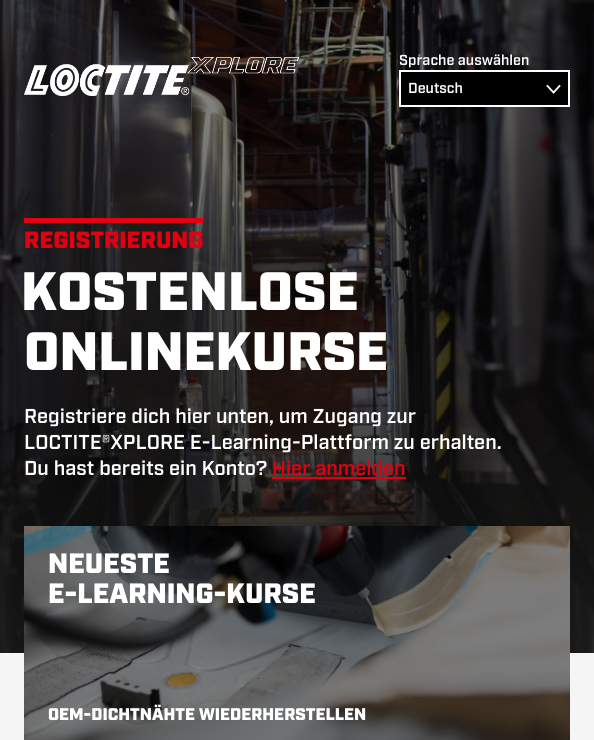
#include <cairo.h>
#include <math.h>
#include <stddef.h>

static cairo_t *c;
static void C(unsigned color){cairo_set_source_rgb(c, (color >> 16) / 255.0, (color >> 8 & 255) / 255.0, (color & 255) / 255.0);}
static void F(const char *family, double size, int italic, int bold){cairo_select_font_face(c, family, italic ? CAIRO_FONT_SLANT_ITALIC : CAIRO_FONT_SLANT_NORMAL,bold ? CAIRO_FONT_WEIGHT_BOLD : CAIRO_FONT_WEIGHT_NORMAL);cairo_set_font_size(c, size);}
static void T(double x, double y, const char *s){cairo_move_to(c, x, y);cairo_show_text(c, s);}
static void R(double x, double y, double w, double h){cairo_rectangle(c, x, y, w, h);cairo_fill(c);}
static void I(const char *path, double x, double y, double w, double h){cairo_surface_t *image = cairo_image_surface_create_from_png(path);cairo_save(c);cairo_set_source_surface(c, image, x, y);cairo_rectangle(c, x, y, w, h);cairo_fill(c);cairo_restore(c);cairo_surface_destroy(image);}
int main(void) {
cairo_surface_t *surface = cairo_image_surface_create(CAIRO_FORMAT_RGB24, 594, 740);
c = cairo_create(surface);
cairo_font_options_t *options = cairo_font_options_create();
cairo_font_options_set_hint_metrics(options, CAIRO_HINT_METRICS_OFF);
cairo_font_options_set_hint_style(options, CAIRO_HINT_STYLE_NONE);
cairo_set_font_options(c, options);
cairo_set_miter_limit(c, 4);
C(0xf5f5f5);
cairo_paint(c);
C(0x000000);
R(0,0,594,653);
I("1.png",0,0,594,653);
I("2.png",24,57,275,39);
F("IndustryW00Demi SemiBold",14.5,0,0);
C(0xffffff);
T(399,65,"Sprache auswählen");
C(0x000000);
R(401,72,167,33);
cairo_new_path(c);
cairo_move_to(c,553.5,92.5);
cairo_line_to(c,547.5,86);
cairo_move_to(c,553.5,92.5);
cairo_line_to(c,559.5,86);
C(0xffffff);
cairo_set_line_width(c,1.8);
cairo_set_line_cap(c,CAIRO_LINE_CAP_SQUARE);
cairo_stroke(c);
cairo_rectangle(c,400,71,169,35);
cairo_set_line_width(c,2);
cairo_set_line_cap(c,CAIRO_LINE_CAP_BUTT);
cairo_stroke(c);
T(408,93,"Deutsch");
C(0xe1000f);
R(24,218,179,5);
F("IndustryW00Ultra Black",23.5,0,0);
T(24,248,"REGISTRIERUNG");
F("IndustryW00Ultra Black",54,0,0);
C(0xffffff);
T(21,310,"KOSTENLOSE");
T(24,370,"ONLINEKURSE");
F("IndustryW00Demi SemiBold",20.1,0,0);
T(24,423,"Registriere dich hier unten, um Zugang zur");
T(24,449,"LOCTITE®XPLORE E-Learning-Plattform zu erhalten.");
T(24,475,"Du hast bereits ein Konto?");
C(0xe1000f);
T(272,475,"Hier anmelden");
R(272,477,134,2);
C(0x000000);
R(24,526,546,214);
I("3.png",24,526,546,214);
F("IndustryW00Ultra Black",28,0,0);
C(0xffffff);
T(48,573,"NEUESTE");
T(48,603,"E-LEARNING-KURSE");
F("IndustryW00Ultra Black",16.9,0,0);
T(48,720,"OEM-DICHTNÄHTE WIEDERHERSTELLEN");
cairo_surface_write_to_png(surface, "o.png");
cairo_font_options_destroy(options);
cairo_destroy(c);
cairo_surface_destroy(surface);
return 0;
}
